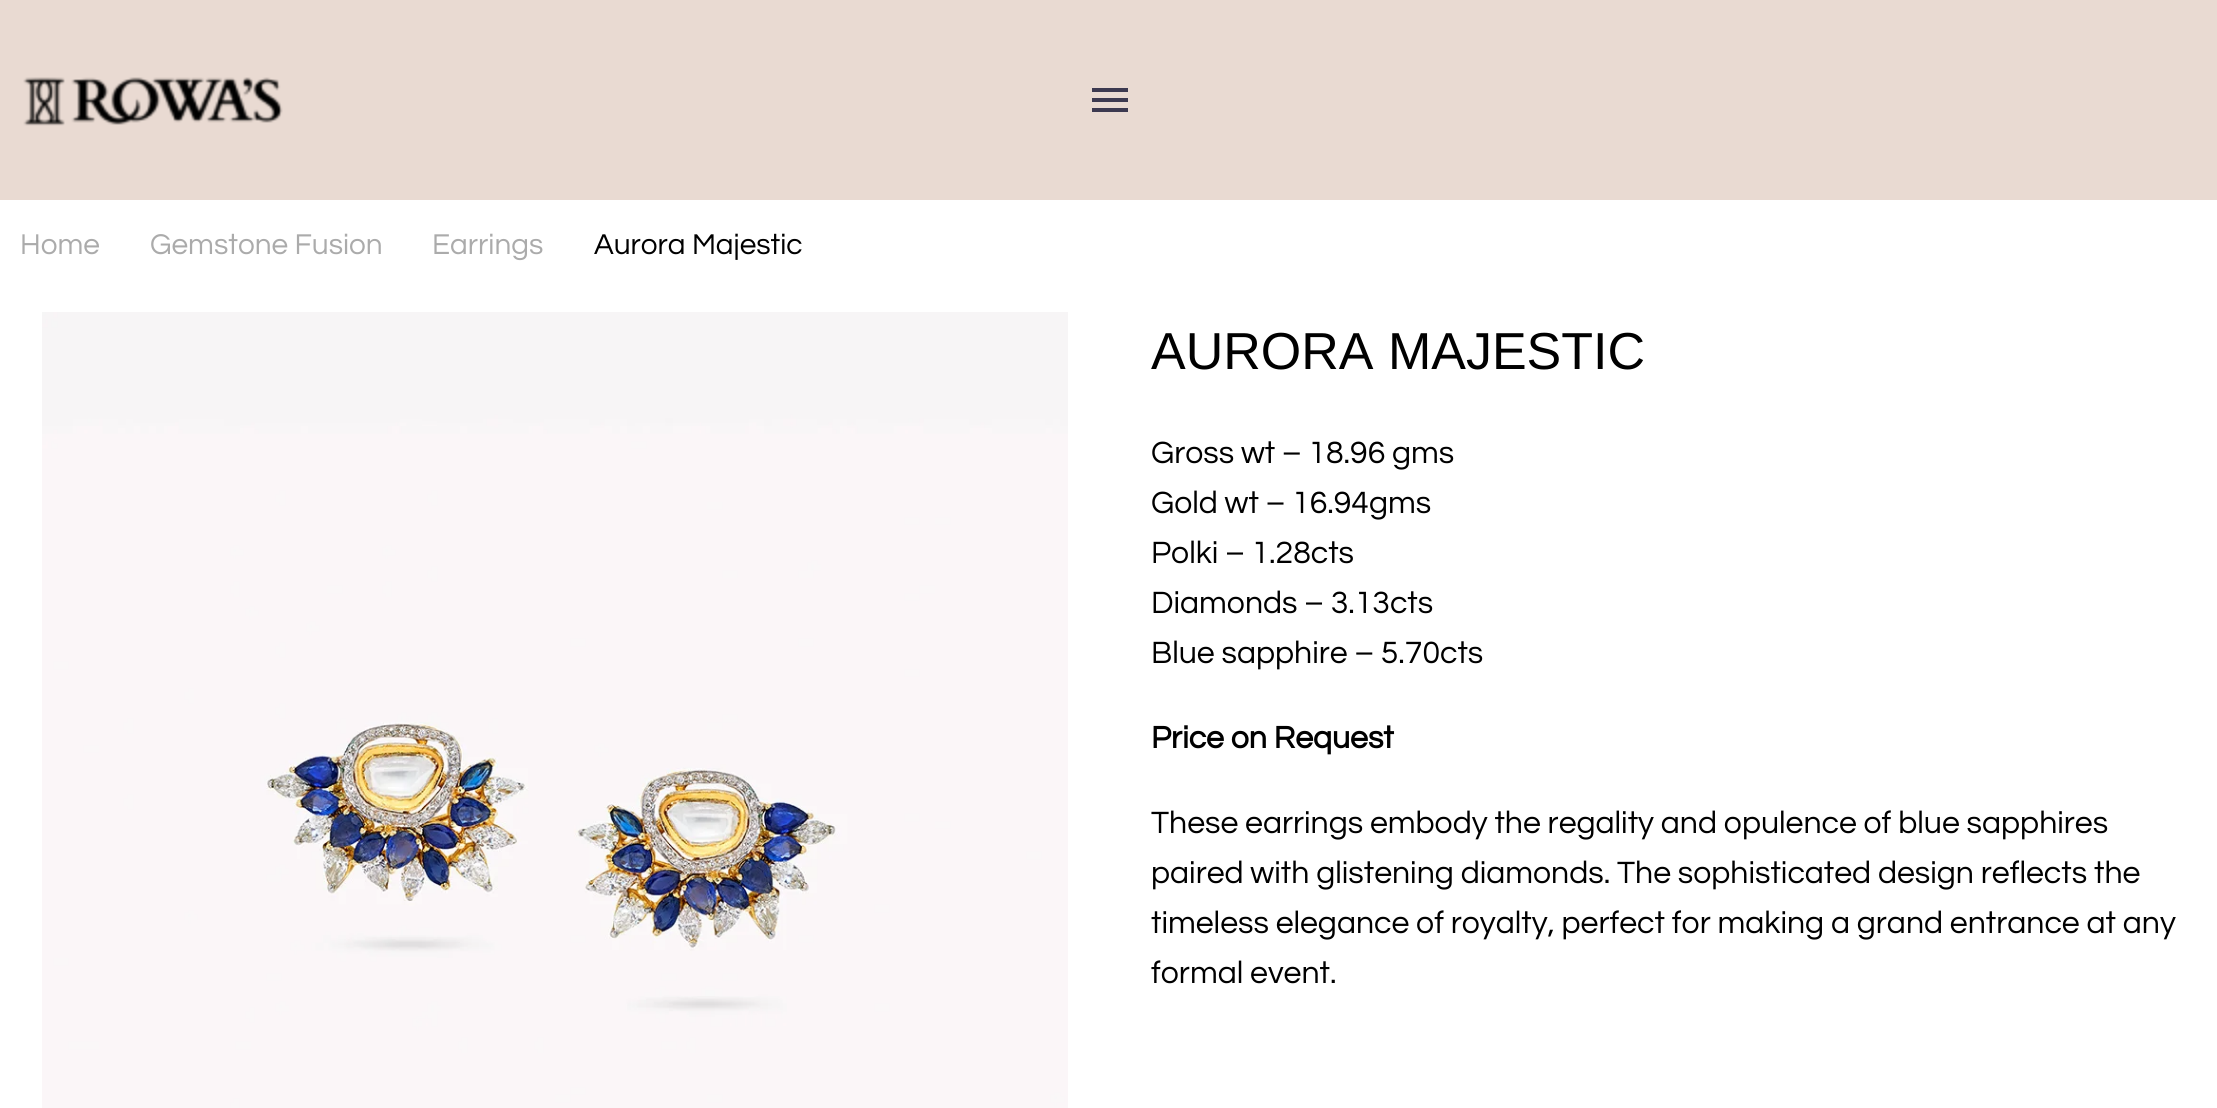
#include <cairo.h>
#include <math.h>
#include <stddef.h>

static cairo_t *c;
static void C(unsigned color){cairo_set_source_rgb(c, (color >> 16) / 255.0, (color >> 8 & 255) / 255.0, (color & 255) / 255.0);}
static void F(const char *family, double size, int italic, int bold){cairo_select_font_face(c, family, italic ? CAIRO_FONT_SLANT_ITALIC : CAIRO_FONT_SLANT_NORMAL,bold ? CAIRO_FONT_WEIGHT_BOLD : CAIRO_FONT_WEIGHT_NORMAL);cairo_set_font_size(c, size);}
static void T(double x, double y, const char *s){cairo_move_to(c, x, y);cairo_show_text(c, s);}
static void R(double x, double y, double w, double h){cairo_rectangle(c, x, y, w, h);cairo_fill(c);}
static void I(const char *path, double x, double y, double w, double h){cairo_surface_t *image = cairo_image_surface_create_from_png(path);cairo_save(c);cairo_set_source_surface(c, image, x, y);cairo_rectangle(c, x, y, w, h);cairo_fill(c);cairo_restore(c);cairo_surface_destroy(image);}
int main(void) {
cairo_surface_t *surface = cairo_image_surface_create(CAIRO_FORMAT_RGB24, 2217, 1108);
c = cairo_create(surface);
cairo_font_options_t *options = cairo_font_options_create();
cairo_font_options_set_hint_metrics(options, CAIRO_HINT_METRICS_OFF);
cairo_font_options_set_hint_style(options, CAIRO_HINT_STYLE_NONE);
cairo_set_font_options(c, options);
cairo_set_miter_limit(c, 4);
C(0xffffff);
cairo_paint(c);
C(0xe9dad2);
R(0,0,2217,200);
I("1.png",23,77,260,49);
C(0x3c3950);
R(1092,88,36,4);
R(1092,98,36,4);
R(1092,108,36,4);
F("Questrial",29.75,0,0);
C(0xababab);
T(20,254,"Home");
T(150,254,"Gemstone Fusion");
T(432,254,"Earrings");
C(0x000000);
T(594,254,"Aurora Majestic");
I("2.png",42,312,1026,796);
F("Liberation Sans",52,0,0);
T(1151,369,"AURORA MAJESTIC");
F("Questrial",32,0,0);
T(1151,463,"Gross wt – 18.96 gms");
T(1151,513,"Gold wt – 16.94gms");
T(1151,563,"Polki – 1.28cts");
T(1151,613,"Diamonds – 3.13cts");
T(1151,663,"Blue sapphire – 5.70cts");
F("Questrial",32,0,1);
T(1151,748,"Price on Request");
F("Questrial",32,0,0);
T(1151,833,"These earrings embody the regality and opulence of blue sapphires");
T(1151,883,"paired with glistening diamonds. The sophisticated design reflects the");
T(1151,933,"timeless elegance of royalty, perfect for making a grand entrance at any");
T(1151,983,"formal event.");
cairo_surface_write_to_png(surface, "o.png");
cairo_font_options_destroy(options);
cairo_destroy(c);
cairo_surface_destroy(surface);
return 0;
}
